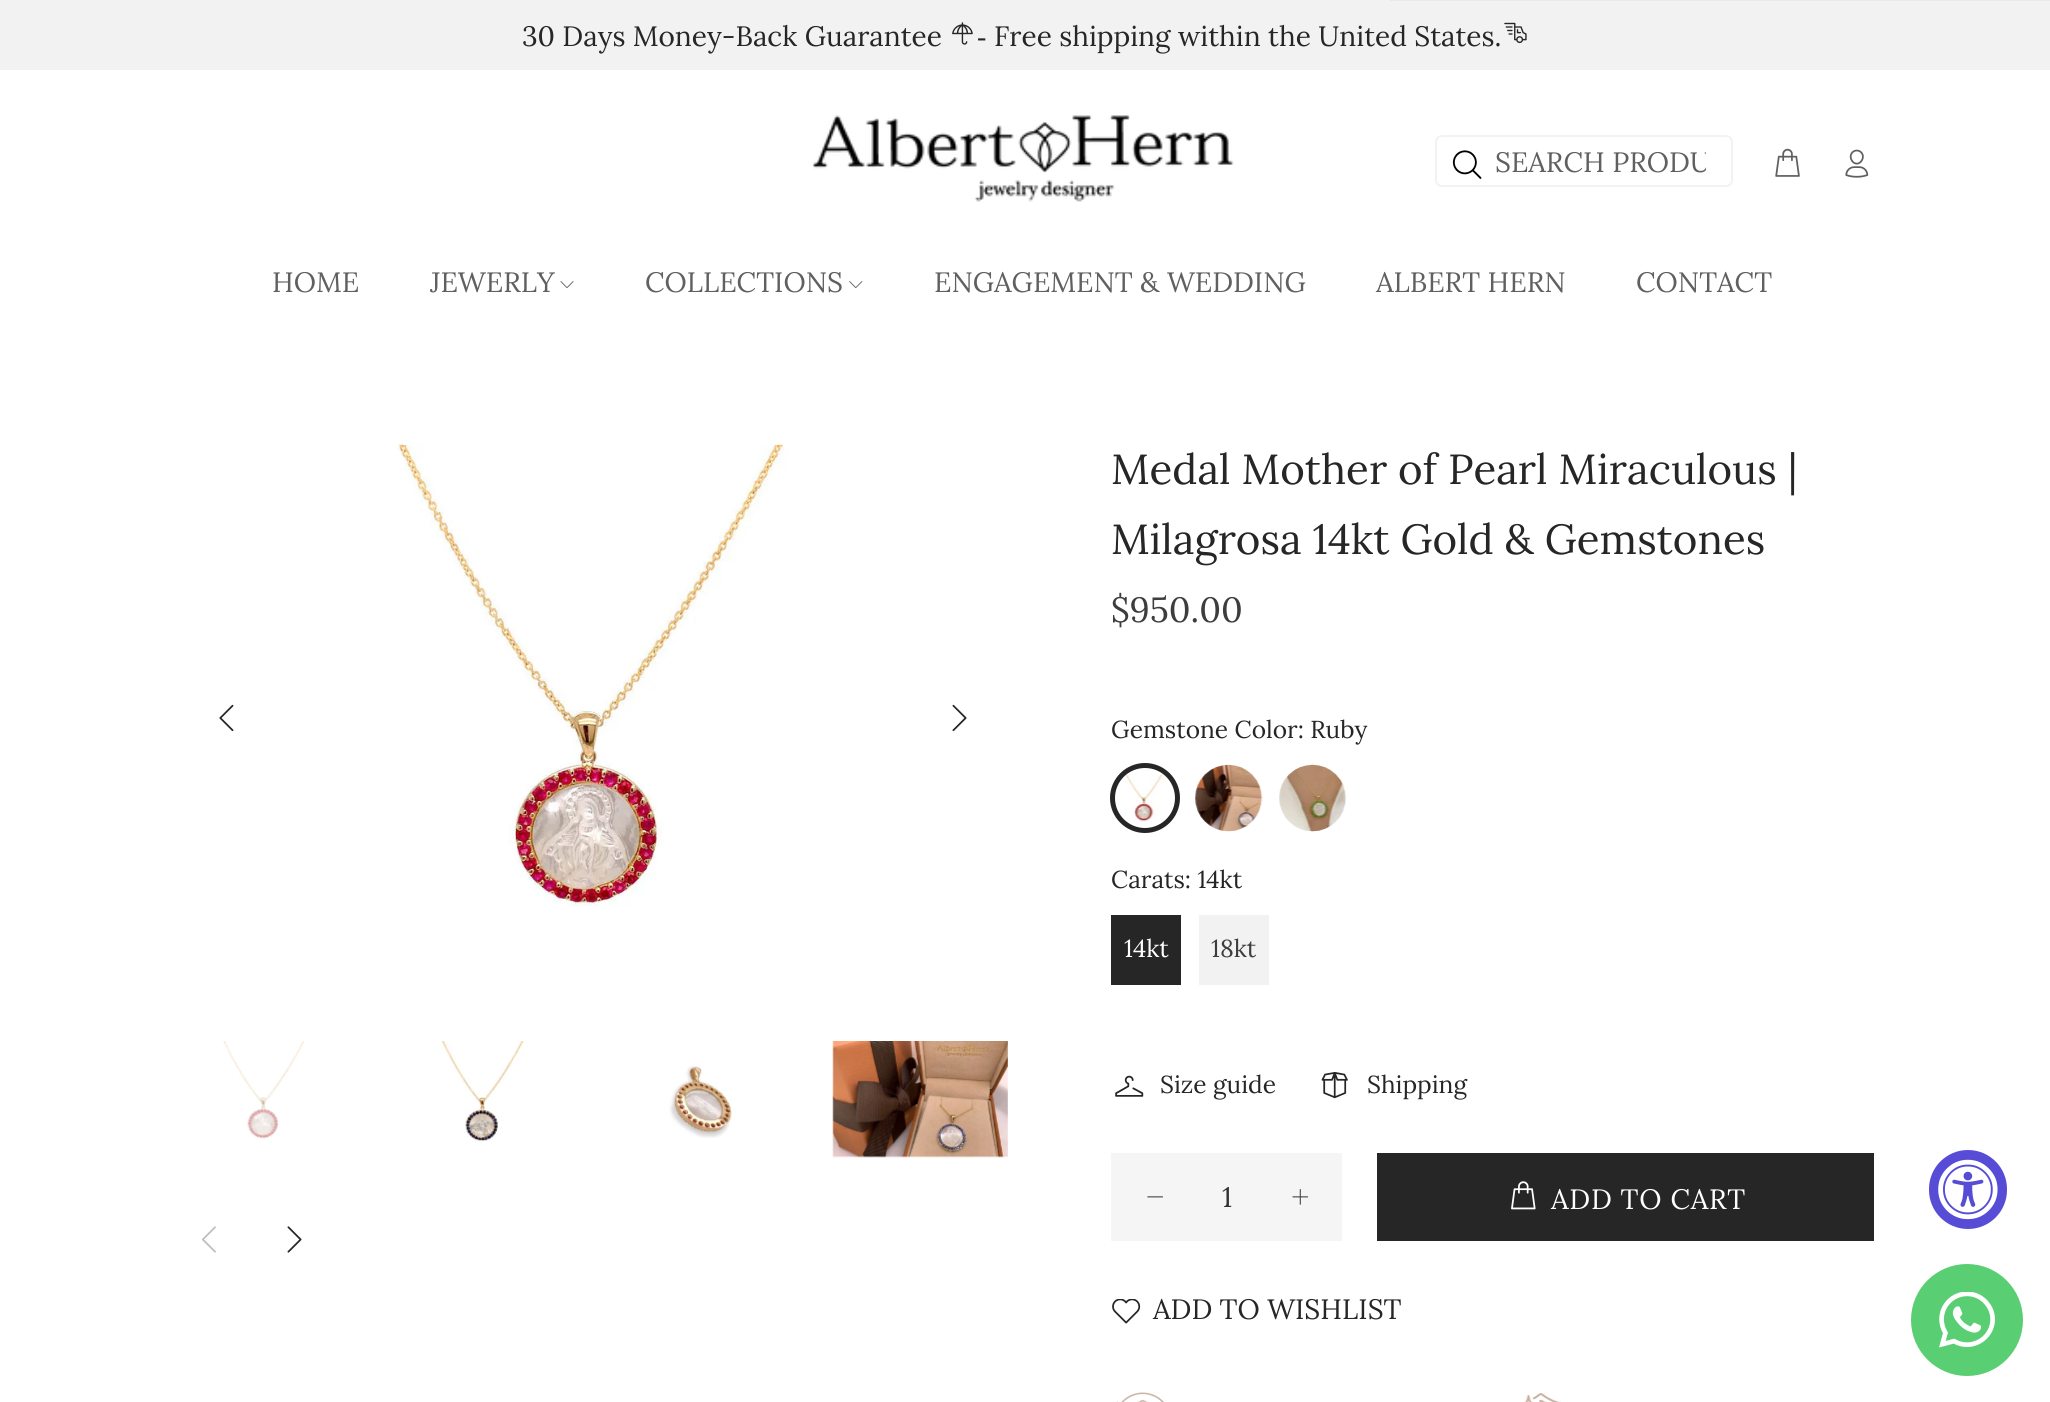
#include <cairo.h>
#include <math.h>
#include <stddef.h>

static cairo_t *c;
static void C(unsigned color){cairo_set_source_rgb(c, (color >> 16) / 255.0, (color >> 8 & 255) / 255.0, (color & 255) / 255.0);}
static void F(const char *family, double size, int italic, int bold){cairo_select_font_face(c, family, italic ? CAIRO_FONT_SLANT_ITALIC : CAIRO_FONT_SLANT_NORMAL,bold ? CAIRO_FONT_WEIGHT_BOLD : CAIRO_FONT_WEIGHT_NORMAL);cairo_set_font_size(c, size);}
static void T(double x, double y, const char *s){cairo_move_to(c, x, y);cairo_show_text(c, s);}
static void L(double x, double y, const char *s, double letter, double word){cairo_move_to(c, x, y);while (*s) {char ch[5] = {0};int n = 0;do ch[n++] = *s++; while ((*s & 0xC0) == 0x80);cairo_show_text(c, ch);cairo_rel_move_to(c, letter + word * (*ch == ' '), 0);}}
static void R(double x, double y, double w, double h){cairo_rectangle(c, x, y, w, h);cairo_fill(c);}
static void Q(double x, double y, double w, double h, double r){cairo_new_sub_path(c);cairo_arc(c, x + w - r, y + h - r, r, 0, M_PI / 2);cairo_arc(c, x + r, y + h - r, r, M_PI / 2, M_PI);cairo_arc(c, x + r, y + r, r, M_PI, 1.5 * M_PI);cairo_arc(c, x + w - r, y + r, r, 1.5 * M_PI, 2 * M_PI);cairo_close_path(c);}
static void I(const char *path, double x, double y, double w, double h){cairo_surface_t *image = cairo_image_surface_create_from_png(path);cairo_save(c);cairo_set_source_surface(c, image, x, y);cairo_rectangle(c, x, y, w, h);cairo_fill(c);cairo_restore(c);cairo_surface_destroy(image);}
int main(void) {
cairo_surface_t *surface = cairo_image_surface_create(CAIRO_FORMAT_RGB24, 2050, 1402);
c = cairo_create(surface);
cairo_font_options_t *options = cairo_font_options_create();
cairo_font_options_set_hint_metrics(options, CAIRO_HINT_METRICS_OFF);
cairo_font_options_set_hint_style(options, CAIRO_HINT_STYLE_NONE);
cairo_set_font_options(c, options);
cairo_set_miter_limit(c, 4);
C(0xffffff);
cairo_paint(c);
C(0xf2f2f2);
R(0,0,2050,70);
C(0xe8e9eb);
R(1390,0,660,1);
F("Lora",28,0,0);
C(0x262626);
T(522,46,"30 Days Money-Back Guarantee");
I("1.png",952,22,21,23);
F("Liberation Serif",28,0,0);
T(977,46,"-");
F("Lora",28,0,0);
T(994,46,"Free shipping within the United States.");
I("2.png",1504,22,23,22);
I("3.png",812,115,422,87);
Q(1436,136,296,50,6);
C(0xf2f2f2);
cairo_stroke(c);
I("4.png",1452,150,30,29);
cairo_save(c);
cairo_rectangle(c,1496,145,210,35);
cairo_clip(c);
C(0x606060);
T(1495,172,"SEARCH PRODU");
cairo_restore(c);
I("5.png",1775,148,25,29);
I("6.png",1845,149,24,29);
C(0x606060);
T(272,292,"HOME");
T(430,292,"JEWERLY");
I("7.png",560,281,14,7);
T(645,292,"COLLECTIONS");
I("8.png",849,281,14,8);
T(934,292,"ENGAGEMENT & WEDDING");
T(1376,292,"ALBERT HERN");
T(1636,292,"CONTACT");
I("9.png",397,444,390,463);
I("10.png",219,704,15,28);
I("11.png",952,704,15,28);
I("12.png",222,1041,83,98);
I("13.png",441,1041,83,101);
I("14.png",669,1065,63,73);
I("15.png",832,1041,176,117);
I("16.png",202,1226,14,27);
I("17.png",287,1226,15,27);
F("Lora",42,0,0);
C(0x262626);
T(1111,484,"Medal Mother of Pearl Miraculous |");
T(1111,554,"Milagrosa 14kt Gold & Gemstones");
F("Lora",35,0,0);
C(0x3d3d3d);
T(1111,622,"$950.00");
F("Lora",24.5,0,0);
C(0x262626);
T(1111,738,"Gemstone Color: Ruby");
I("18.png",1123,770,43,52);
Q(1113,767,63,62,31);
C(0xffffff);
cairo_set_line_width(c,4);
cairo_stroke(c);
cairo_arc(c,1145,798,32.5,0,2 * M_PI);
C(0x262626);
cairo_set_line_width(c,5);
cairo_stroke(c);
I("19.png",1195,764,68,68);
I("20.png",1279,764,68,68);
T(1111,888,"Carats: 14kt");
R(1111,915,70,70);
C(0xffffff);
T(1124,957,"14kt");
C(0xf2f2f2);
R(1199,915,70,70);
C(0x3d3d3d);
T(1211,957,"18kt");
I("21.png",1115,1075,29,22);
C(0x262626);
T(1160,1093,"Size guide");
I("22.png",1321,1071,27,28);
T(1367,1093,"Shipping");
C(0xf5f5f5);
R(1111,1153,231,88);
I("23.png",1147,1196,16,2);
F("Lora",28,0,0);
C(0x333333);
T(1222,1207,"1");
I("24.png",1292,1189,17,16);
C(0x262626);
R(1377,1153,497,88);
I("25.png",1511,1181,25,29);
C(0xffffff);
L(1551,1209,"ADD TO CART",.75,0);
I("26.png",1112,1299,29,25);
C(0x262626);
T(1153,1319,"ADD TO WISHLIST");
I("27.png",1116,1392,49,10);
I("28.png",1524,1393,37,9);
C(0x574cd5);
Q(1929,1150,78,79,39);
cairo_fill(c);
I("29.png",1938,1159,60,61);
C(0x59ce72);
cairo_arc(c,1967,1320,56,0,2 * M_PI);
cairo_fill(c);
I("30.png",1939,1292,56,56);
cairo_surface_write_to_png(surface, "o.png");
cairo_font_options_destroy(options);
cairo_destroy(c);
cairo_surface_destroy(surface);
return 0;
}
